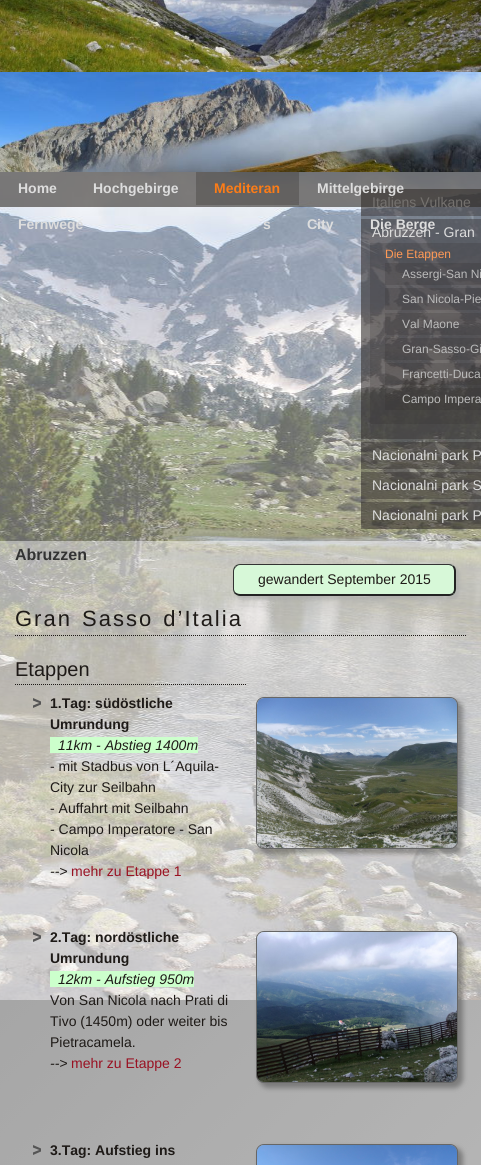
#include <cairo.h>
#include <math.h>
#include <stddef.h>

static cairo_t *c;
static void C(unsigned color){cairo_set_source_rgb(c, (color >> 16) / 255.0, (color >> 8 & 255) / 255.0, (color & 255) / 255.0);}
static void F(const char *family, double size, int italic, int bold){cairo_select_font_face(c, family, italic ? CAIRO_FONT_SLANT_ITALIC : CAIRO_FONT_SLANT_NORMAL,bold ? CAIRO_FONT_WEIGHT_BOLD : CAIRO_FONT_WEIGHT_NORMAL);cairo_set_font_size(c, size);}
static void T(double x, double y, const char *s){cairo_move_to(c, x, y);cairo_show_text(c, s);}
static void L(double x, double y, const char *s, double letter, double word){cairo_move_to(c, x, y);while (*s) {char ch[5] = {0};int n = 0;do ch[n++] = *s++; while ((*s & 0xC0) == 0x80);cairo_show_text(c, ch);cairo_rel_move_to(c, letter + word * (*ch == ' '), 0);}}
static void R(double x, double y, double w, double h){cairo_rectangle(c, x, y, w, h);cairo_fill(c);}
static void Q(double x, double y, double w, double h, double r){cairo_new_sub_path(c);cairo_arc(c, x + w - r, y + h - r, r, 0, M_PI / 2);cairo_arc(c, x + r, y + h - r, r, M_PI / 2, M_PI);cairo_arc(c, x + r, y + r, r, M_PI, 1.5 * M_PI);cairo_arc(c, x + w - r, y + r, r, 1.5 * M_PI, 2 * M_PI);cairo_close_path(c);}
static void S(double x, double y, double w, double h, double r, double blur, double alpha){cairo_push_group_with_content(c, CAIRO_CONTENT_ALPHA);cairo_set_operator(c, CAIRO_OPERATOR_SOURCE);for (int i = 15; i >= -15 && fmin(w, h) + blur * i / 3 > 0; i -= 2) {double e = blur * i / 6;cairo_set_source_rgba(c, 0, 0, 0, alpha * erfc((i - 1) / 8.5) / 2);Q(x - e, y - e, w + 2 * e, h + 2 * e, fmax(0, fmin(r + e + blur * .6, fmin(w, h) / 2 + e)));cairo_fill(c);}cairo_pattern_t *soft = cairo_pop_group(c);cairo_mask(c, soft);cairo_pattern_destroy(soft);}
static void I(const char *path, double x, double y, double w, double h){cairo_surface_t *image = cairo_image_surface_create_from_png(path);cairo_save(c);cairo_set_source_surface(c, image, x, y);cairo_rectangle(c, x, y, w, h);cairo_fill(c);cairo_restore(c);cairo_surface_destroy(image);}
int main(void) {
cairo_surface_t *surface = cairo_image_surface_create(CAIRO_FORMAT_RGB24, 481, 1165);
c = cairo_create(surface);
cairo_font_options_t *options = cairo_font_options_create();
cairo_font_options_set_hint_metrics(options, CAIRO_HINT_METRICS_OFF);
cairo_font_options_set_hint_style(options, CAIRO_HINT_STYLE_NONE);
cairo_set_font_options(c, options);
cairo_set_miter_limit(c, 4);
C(0xffffff);
cairo_paint(c);
I("1.png",0,172,481,993);
I("2.png",0,0,481,72);
I("3.png",0,72,481,100);
I("4.png",361,189,120,340);
cairo_set_source_rgba(c,0.176,0.165,0.157,0.4);
R(361,189,120,27);
F("Liberation Sans",14,0,0);
C(0xdddddd);
T(372,207,"Italiens Vulkane");
cairo_set_source_rgba(c,0.184,0.165,0.149,0.6);
R(0,172,481,35);
F("Liberation Sans",14,0,1);
C(0xdddddd);
T(18,193,"Home");
T(93,193,"Hochgebirge");
cairo_set_source_rgba(c,0.184,0.173,0.157,0.3);
R(196,172,103,33);
C(0xfc7c17);
T(214,193,"Mediteran");
C(0xdddddd);
T(317,193,"Mittelgebirge");
T(18,229,"Fernwege");
T(263,229,"s");
T(307,229,"City");
cairo_set_source_rgba(c,0.176,0.165,0.157,0.4);
R(361,219,120,220);
F("Liberation Sans",14,0,0);
C(0xdddddd);
T(372,237,"Abruzzen - Gran");
F("Liberation Sans",14,0,1);
T(370,229,"Die Berge");
cairo_set_source_rgba(c,0.176,0.157,0.157,0.2);
R(370,243,111,181);
F("Liberation Sans",12,0,0);
C(0xff9955);
T(385,258,"Die Etappen");
cairo_set_source_rgba(c,0.176,0.157,0.157,0.2);
R(385,263,96,22);
C(0xbbbbbb);
T(402,278,"Assergi-San Ni");
cairo_set_source_rgba(c,0.176,0.157,0.157,0.2);
R(385,288,96,22);
C(0xbbbbbb);
T(402,303,"San Nicola-Pie");
cairo_set_source_rgba(c,0.176,0.157,0.157,0.2);
R(385,313,96,22);
C(0xbbbbbb);
T(402,328,"Val Maone");
cairo_set_source_rgba(c,0.176,0.157,0.157,0.2);
R(385,338,96,22);
C(0xbbbbbb);
T(402,353,"Gran-Sasso-Gi");
cairo_set_source_rgba(c,0.176,0.157,0.157,0.2);
R(385,363,96,22);
C(0xbbbbbb);
T(402,378,"Francetti-Duca");
cairo_set_source_rgba(c,0.176,0.157,0.157,0.2);
R(385,388,96,22);
C(0xbbbbbb);
T(402,403,"Campo Impera");
cairo_set_source_rgba(c,0.176,0.165,0.157,0.4);
R(361,442,120,27);
F("Liberation Sans",14,0,0);
C(0xdddddd);
T(372,460,"Nacionalni park P");
cairo_set_source_rgba(c,0.176,0.165,0.157,0.4);
R(361,472,120,27);
C(0xdddddd);
T(372,490,"Nacionalni park S");
cairo_set_source_rgba(c,0.176,0.165,0.157,0.4);
R(361,502,120,27);
C(0xdddddd);
T(372,520,"Nacionalni park P");
cairo_set_source_rgba(c,1,1,1,0.45);
R(0,541,481,624);
F("Liberation Sans",16,0,1);
C(0x333333);
T(15,560,"Abruzzen");
C(0xaaaaaa);
S(235,566,225,34,8,1.5,.6);
C(0xd7f8d8);
Q(233,564,223,32,7);
cairo_fill(c);
C(0x333333);
cairo_new_path(c);
cairo_move_to(c,240,564);
cairo_curve_to(c,238,564,236,565,235,566);
cairo_line_to(c,236,567);
cairo_curve_to(c,237,566,238,565,240,565);
cairo_line_to(c,449,565);
cairo_line_to(c,452,566);
cairo_line_to(c,453,565);
cairo_curve_to(c,452,565,451,564,449,564);
cairo_close_path(c);
cairo_fill(c);
C(0x222222);
cairo_new_path(c);
cairo_move_to(c,456,589);
cairo_line_to(c,456,571);
cairo_curve_to(c,456,568.5,455,566.5,453.5,565.5);
cairo_line_to(c,452,566);
cairo_curve_to(c,453,567,454,569,454,571);
cairo_line_to(c,454,589);
cairo_curve_to(c,454,590.5,453.5,592,452.5,592.5);
cairo_line_to(c,454,594);
cairo_curve_to(c,455,593,456,591,456,589);
cairo_close_path(c);
cairo_fill(c);
cairo_new_path(c);
cairo_move_to(c,240,596);
cairo_line_to(c,449,596);
cairo_curve_to(c,451,596,453,595,454,594);
cairo_line_to(c,453,593);
cairo_line_to(c,450,594);
cairo_line_to(c,240,594);
cairo_curve_to(c,238,594,236,593,235,592);
cairo_line_to(c,234,593);
cairo_curve_to(c,236,595,238,596,240,596);
cairo_close_path(c);
cairo_fill(c);
C(0x333333);
cairo_new_path(c);
cairo_move_to(c,233,571);
cairo_line_to(c,233,589);
cairo_curve_to(c,233,590.5,233.5,592,234.5,593.5);
cairo_line_to(c,235,592);
cairo_curve_to(c,234.5,591,234,590,234,589);
cairo_line_to(c,234,571);
cairo_curve_to(c,234,569.5,235,568,236,567);
cairo_line_to(c,235,566);
cairo_curve_to(c,234,567,233,569,233,571);
cairo_close_path(c);
cairo_fill(c);
F("Liberation Sans",14,0,0);
C(0x1e1a17);
T(258,584,"gewandert September 2015");
cairo_new_path(c);
cairo_move_to(c,15,635.5);
cairo_line_to(c,466,635.5);
cairo_set_line_width(c,1);
cairo_set_dash(c,(double[]){1,1},2,0);
cairo_stroke(c);
F("Liberation Sans",22,0,0);
L(15,626,"Gran Sasso d’Italia",2,2);
cairo_new_path(c);
cairo_move_to(c,15,684.5);
cairo_line_to(c,246,684.5);
cairo_stroke(c);
F("Liberation Sans",20,0,0);
T(15,676,"Etappen");
I("5.png",33,698,8,10);
F("Liberation Sans",14,0,1);
T(50,708,"1.Tag: südöstliche");
C(0x464646);
S(259,700,204,154,9,2.5,.5);
Q(256.5,697.5,201,151,7.5);
C(0x666666);
cairo_set_dash(c,NULL,0,0);
cairo_stroke(c);
I("6.png",257,698,200,150);
C(0x1e1a17);
T(50,729,"Umrundung");
C(0xccffcc);
R(50,737,148,16);
F("Liberation Sans",14,1,0);
C(0x1e1a17);
T(58,750,"11km - Abstieg 1400m");
F("Liberation Sans",14,0,0);
T(50,771,"- mit Stadbus von L´Aquila-");
T(50,792,"City zur Seilbahn");
T(50,813,"- Auffahrt mit Seilbahn");
T(50,834,"- Campo Imperatore - San");
T(50,855,"Nicola");
F("Liberation Sans",14,1,0);
T(50,876,"-->");
F("Liberation Sans",14,0,0);
C(0x991122);
T(71,876,"mehr zu Etappe 1");
I("7.png",33,932,8,10);
F("Liberation Sans",14,0,1);
C(0x1e1a17);
T(50,942,"2.Tag: nordöstliche");
C(0x464646);
S(259,934,204,154,9,2.5,.5);
Q(256.5,931.5,201,151,7.5);
C(0x666666);
cairo_stroke(c);
I("8.png",257,932,200,150);
C(0x1e1a17);
T(50,963,"Umrundung");
C(0xccffcc);
R(50,971,144,16);
F("Liberation Sans",14,1,0);
C(0x1e1a17);
T(58,984,"12km - Aufstieg 950m");
F("Liberation Sans",14,0,0);
T(50,1005,"Von San Nicola nach Prati di");
T(50,1026,"Tivo (1450m) oder weiter bis");
T(50,1047,"Pietracamela.");
F("Liberation Sans",14,1,0);
T(50,1068,"-->");
F("Liberation Sans",14,0,0);
C(0x991122);
T(71,1068,"mehr zu Etappe 2");
I("9.png",33,1145,8,10);
F("Liberation Sans",14,0,1);
C(0x1e1a17);
T(50,1155,"3.Tag: Aufstieg ins");
C(0x464646);
S(259,1147,204,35,9,2.5,.5);
Q(256.5,1144.5,201,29,7.5);
C(0x666666);
cairo_stroke(c);
I("10.png",257,1145,200,20);
cairo_surface_write_to_png(surface, "o.png");
cairo_font_options_destroy(options);
cairo_destroy(c);
cairo_surface_destroy(surface);
return 0;
}
